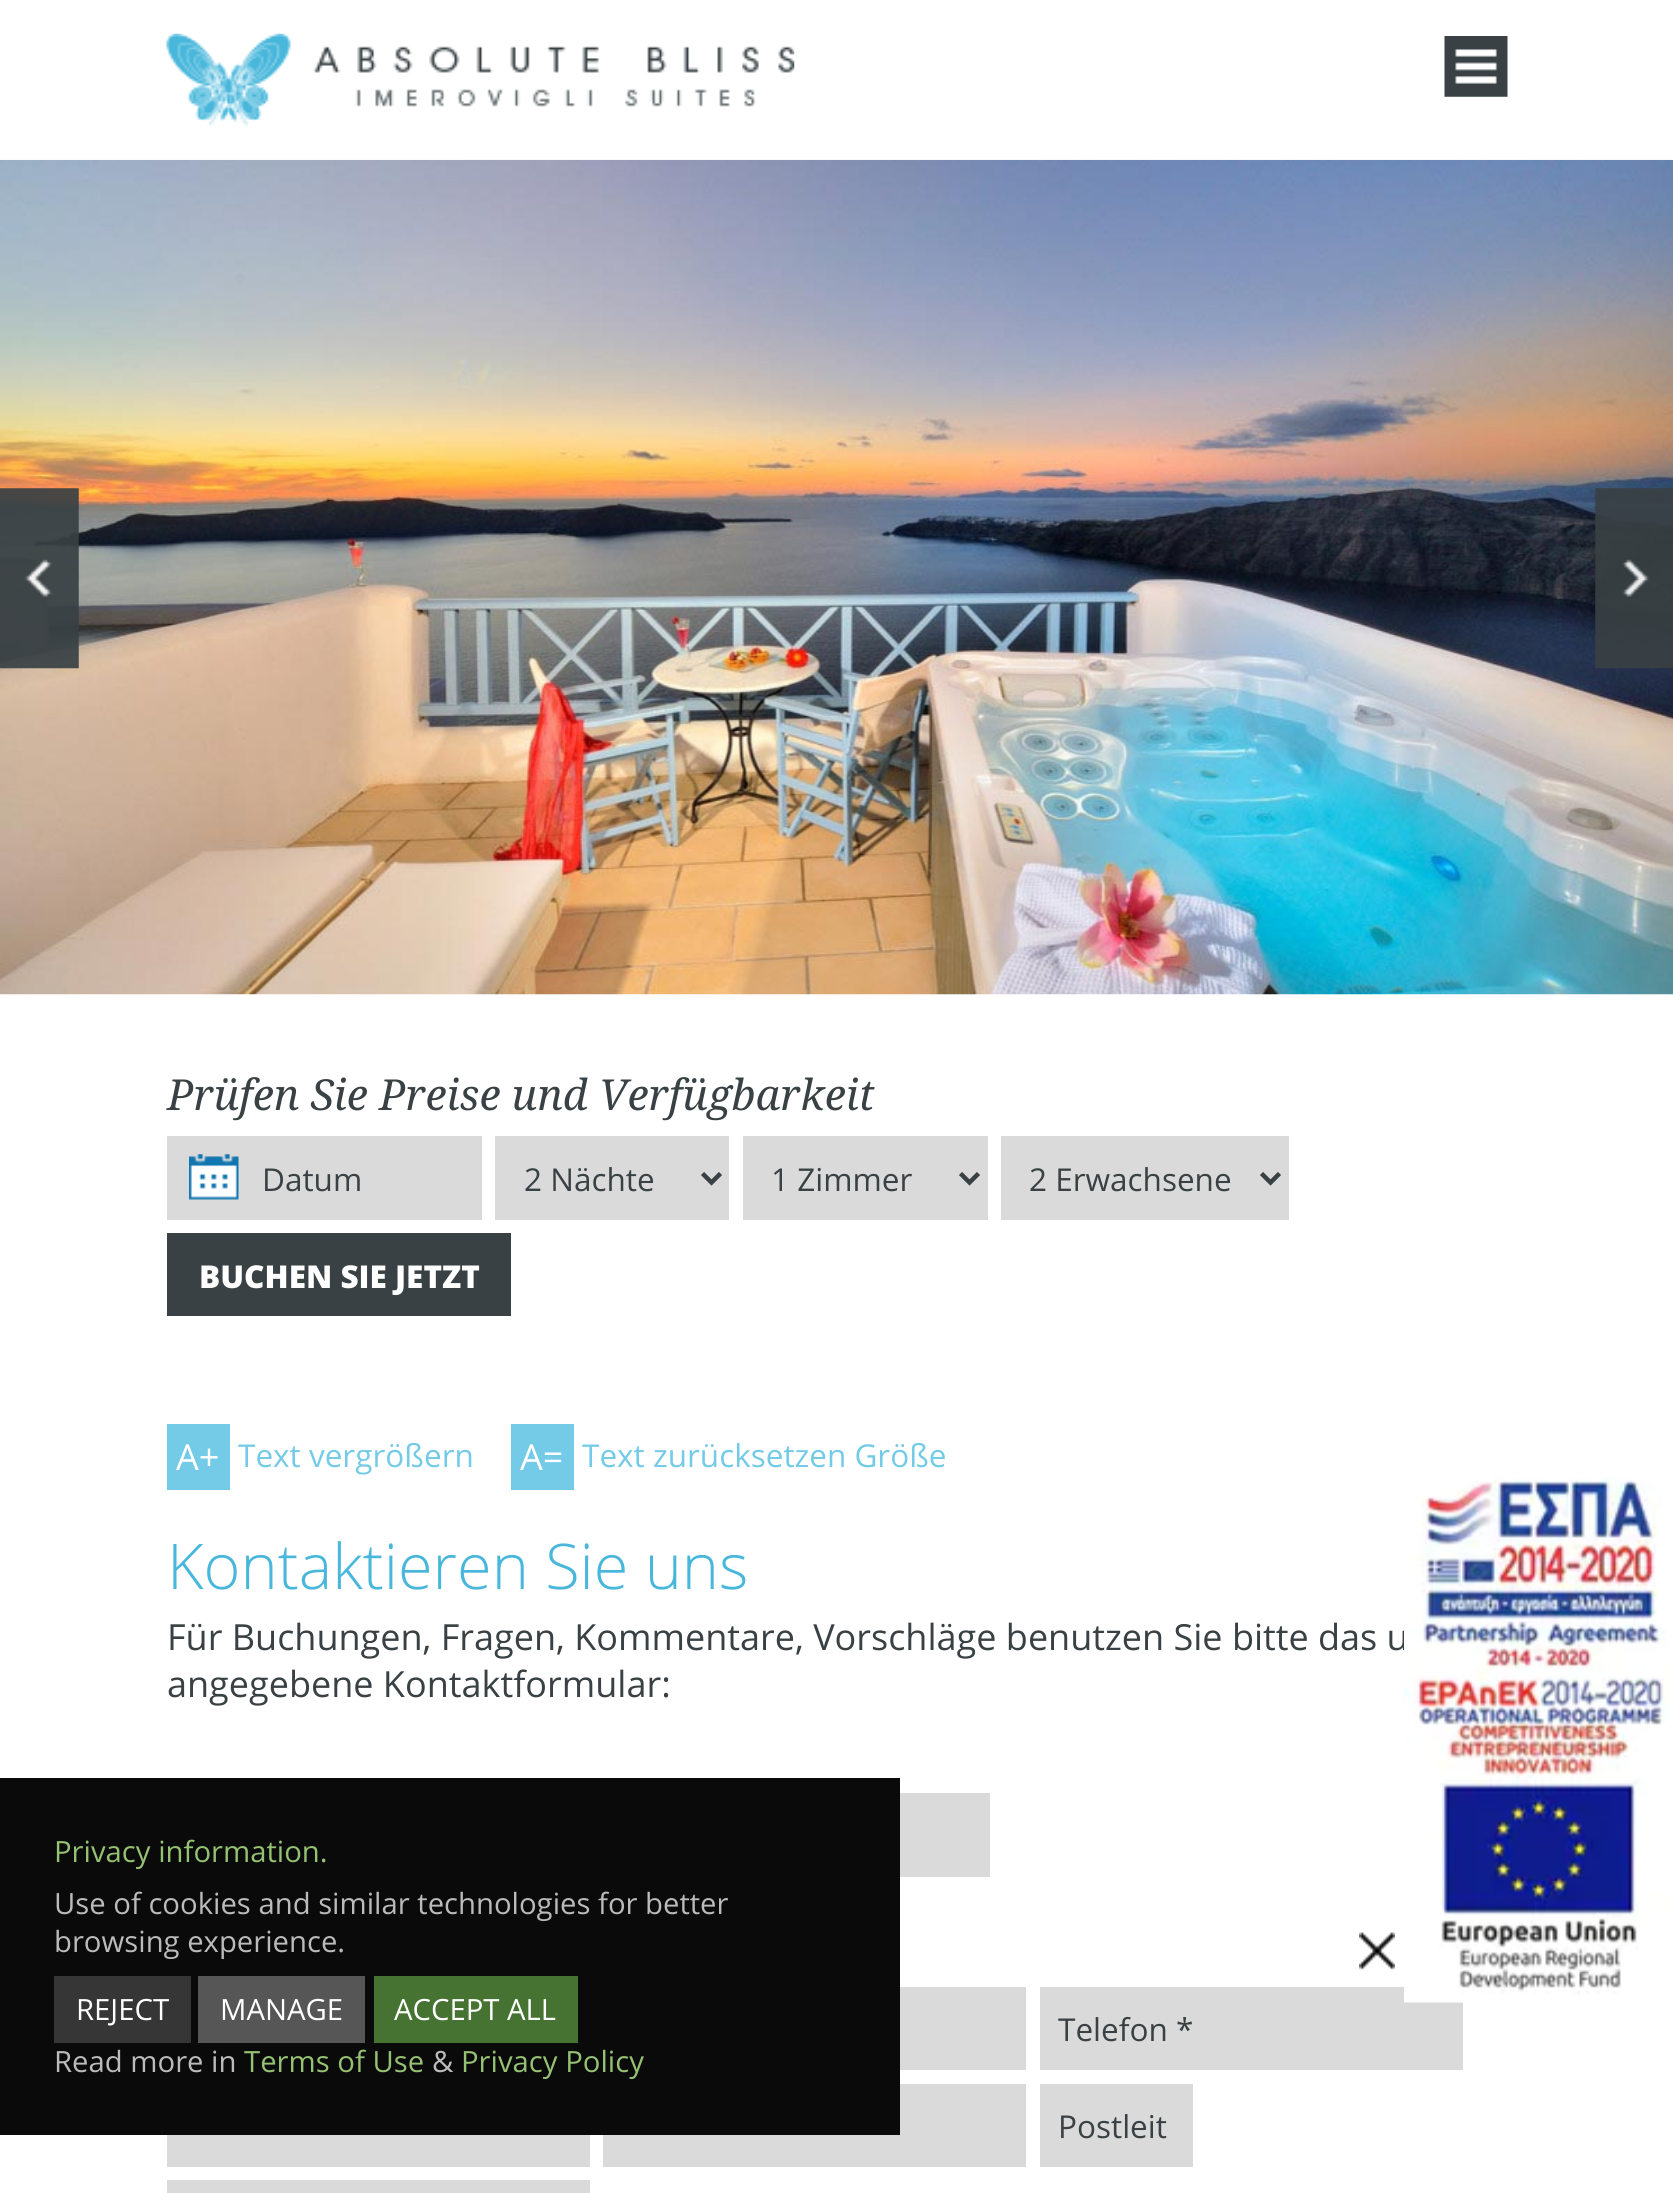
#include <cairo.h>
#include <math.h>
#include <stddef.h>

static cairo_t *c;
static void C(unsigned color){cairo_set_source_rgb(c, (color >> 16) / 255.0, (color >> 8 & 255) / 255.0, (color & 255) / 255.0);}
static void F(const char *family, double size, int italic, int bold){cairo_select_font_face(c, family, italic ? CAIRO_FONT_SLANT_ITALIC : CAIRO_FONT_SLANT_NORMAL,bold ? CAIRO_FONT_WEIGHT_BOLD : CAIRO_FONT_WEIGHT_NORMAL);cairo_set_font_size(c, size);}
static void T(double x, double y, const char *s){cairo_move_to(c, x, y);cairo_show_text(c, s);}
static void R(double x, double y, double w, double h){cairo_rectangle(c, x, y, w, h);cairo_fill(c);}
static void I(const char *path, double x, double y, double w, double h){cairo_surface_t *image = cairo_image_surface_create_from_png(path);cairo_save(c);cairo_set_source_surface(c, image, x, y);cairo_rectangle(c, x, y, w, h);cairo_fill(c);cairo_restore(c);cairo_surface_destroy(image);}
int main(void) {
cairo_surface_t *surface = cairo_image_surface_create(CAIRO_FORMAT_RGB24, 1673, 2193);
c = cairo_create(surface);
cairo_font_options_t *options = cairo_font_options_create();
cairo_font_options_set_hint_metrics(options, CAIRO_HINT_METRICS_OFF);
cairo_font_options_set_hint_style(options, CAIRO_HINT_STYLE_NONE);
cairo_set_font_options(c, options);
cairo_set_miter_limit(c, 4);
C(0xffffff);
cairo_paint(c);
I("1.png",166,33,629,93);
I("2.png",1444,36,64,61);
I("3.png",0,159,1673,836);
I("4.png",0,488,79,181);
I("5.png",1595,488,78,181);
F("Noto Serif",42.75,1,0);
C(0x394144);
T(167,1110,"Prüfen Sie Preise und Verfügbarkeit");
C(0xdadada);
R(167,1136,315,84);
I("6.png",189,1154,50,46);
F("Open Sans",31.5,0,0);
C(0x394144);
T(262,1191,"Datum");
C(0xdadada);
R(495,1136,234,84);
cairo_new_path(c);
cairo_move_to(c,702.5,1173.5);
cairo_line_to(c,711.5,1182.5);
cairo_line_to(c,720.5,1173.5);
C(0x394144);
cairo_set_line_width(c,4.5);
cairo_stroke(c);
T(524,1191,"2 Nächte");
C(0xdadada);
R(743,1136,245,84);
cairo_new_path(c);
cairo_move_to(c,960.5,1173.5);
cairo_line_to(c,969.5,1182.5);
cairo_line_to(c,978.5,1173.5);
C(0x394144);
cairo_stroke(c);
T(771,1191,"1 Zimmer");
C(0xdadada);
R(1001,1136,288,84);
cairo_new_path(c);
cairo_move_to(c,1261.5,1173.5);
cairo_line_to(c,1270.5,1182.5);
cairo_line_to(c,1279.5,1173.5);
C(0x394144);
cairo_stroke(c);
T(1029,1191,"2 Erwachsene");
R(167,1233,344,83);
F("Open Sans ExtraBold",31.5,0,0);
C(0xffffff);
T(199,1288,"BUCHEN SIE JETZT");
C(0x74cbe7);
R(167,1424,63,66);
F("Open Sans",36,0,0);
C(0xffffff);
T(176,1470,"A+");
F("Open Sans",31.5,0,0);
C(0x74cbe7);
T(238,1467,"Text vergrößern");
R(511,1424,63,66);
F("Open Sans",36,0,0);
C(0xffffff);
T(520,1470,"A=");
F("Open Sans",31.5,0,0);
C(0x74cbe7);
T(582,1467,"Text zurücksetzen Größe");
F("Open Sans Light",63,0,0);
C(0x48b7db);
T(167,1589,"Kontaktieren Sie uns");
F("Open Sans",36,0,0);
C(0x394144);
T(167,1650,"Für Buchungen, Fragen, Kommentare, Vorschläge benutzen Sie bitte das u");
T(167,1697,"angegebene Kontaktformular:");
C(0xdadada);
R(900,1793,90,84);
R(900,1987,126,83);
R(1040,1987,423,83);
F("Open Sans",31.5,0,0);
C(0x394144);
T(1058,2041,"Telefon *");
C(0xdadada);
R(603,2084,423,83);
R(1040,2084,153,83);
C(0x394144);
T(1058,2138,"Postleit");
C(0xdadada);
R(167,2135,423,32);
R(167,2180,423,13);
C(0x0a0a0a);
R(0,1778,900,357);
F("Open Sans",29.25,0,0);
C(0x95c172);
T(54,1862,"Privacy information.");
C(0xbbbbbb);
T(54,1914,"Use of cookies and similar technologies for better");
T(54,1952,"browsing experience.");
C(0x363636);
R(54,1976,137,67);
C(0xffffff);
T(76,2020,"REJECT");
C(0x565656);
R(198,1976,167,67);
C(0xffffff);
T(220,2020,"MANAGE");
C(0x477332);
R(374,1976,204,67);
C(0xffffff);
T(394,2020,"ACCEPT ALL");
C(0xbbbbbb);
T(54,2072,"Read more in");
C(0x95c172);
T(244,2072,"Terms of Use");
C(0xbbbbbb);
T(432,2072,"&");
C(0x95c172);
T(461,2072,"Privacy Policy");
I("7.png",1359,1932,36,38);
I("8.png",1404,1477,265,526);
cairo_surface_write_to_png(surface, "o.png");
cairo_font_options_destroy(options);
cairo_destroy(c);
cairo_surface_destroy(surface);
return 0;
}
